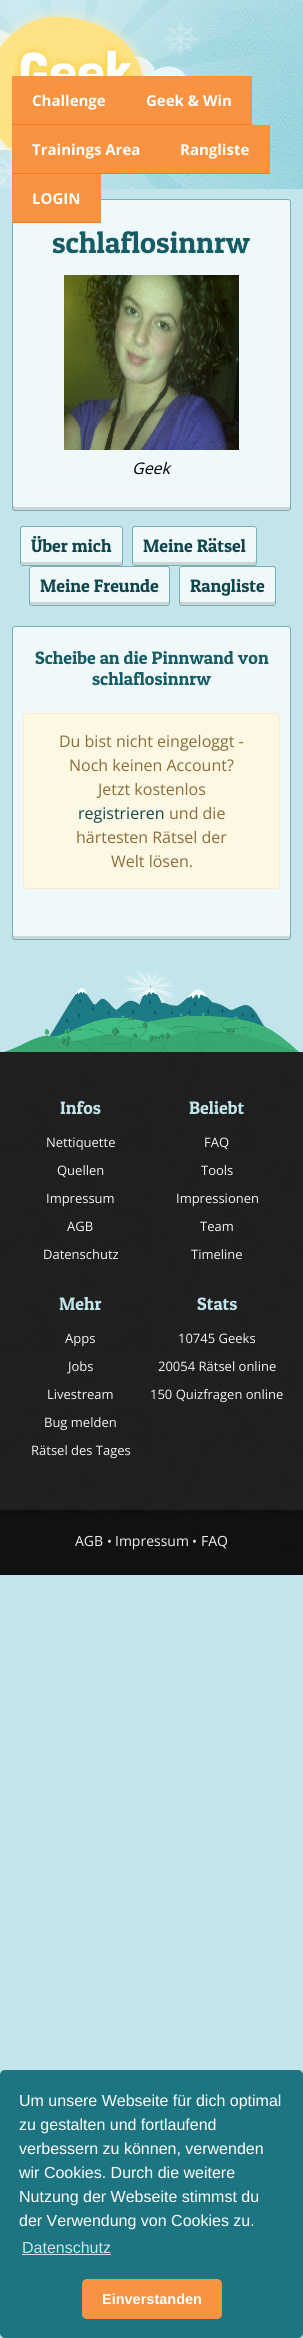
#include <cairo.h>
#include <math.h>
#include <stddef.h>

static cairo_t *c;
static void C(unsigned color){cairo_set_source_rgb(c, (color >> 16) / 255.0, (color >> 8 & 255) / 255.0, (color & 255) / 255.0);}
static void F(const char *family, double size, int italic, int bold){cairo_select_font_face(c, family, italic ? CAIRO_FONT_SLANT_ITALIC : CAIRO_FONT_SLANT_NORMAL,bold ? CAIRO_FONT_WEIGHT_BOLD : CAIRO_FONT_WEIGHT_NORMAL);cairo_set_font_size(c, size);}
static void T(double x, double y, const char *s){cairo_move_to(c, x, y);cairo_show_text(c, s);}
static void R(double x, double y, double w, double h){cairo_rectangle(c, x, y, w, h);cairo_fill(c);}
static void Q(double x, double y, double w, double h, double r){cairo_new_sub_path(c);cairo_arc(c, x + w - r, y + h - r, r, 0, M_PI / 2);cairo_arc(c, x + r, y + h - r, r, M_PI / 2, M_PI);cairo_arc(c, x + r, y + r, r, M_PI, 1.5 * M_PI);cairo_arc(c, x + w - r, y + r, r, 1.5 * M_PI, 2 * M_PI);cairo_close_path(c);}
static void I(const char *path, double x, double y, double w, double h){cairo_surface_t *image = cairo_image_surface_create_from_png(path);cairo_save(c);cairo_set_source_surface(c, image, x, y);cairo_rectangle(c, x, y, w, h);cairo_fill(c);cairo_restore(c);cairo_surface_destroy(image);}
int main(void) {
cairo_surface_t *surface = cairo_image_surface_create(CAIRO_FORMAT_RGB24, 303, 2338);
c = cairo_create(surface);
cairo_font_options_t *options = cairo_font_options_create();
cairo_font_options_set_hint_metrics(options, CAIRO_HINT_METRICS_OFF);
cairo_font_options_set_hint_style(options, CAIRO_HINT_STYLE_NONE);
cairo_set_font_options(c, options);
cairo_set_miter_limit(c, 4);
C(0xc2e5eb);
cairo_paint(c);
I("1.png",0,0,303,189);
I("2.png",14,44,122,32);
C(0xf99341);
R(12,76,240,48);
C(0xef7b23);
R(12,124,240,1);
F("Open Sans",15,0,1);
C(0xffffff);
T(32,106,"Challenge");
T(146,106,"Geek & Win");
C(0xf99341);
R(12,125,258,48);
C(0xef7b23);
R(12,173,258,1);
C(0xffffff);
T(32,155,"Trainings Area");
T(180,155,"Rangliste");
C(0xf0f9fa);
Q(12,199,279,312,3);
cairo_fill(c);
C(0xccd4d5);
cairo_new_path(c);
cairo_move_to(c,13,505);
cairo_curve_to(c,13,506,12,509,14,510);
cairo_line_to(c,288,510);
cairo_curve_to(c,291,510,290,507,290,505);
cairo_curve_to(c,290,506,289,507,288,507);
cairo_line_to(c,15,507);
cairo_curve_to(c,14,507,13,506,13,505);
cairo_close_path(c);
cairo_fill(c);
Q(12.5,199.5,278,311,2.5);
cairo_set_source_rgba(c,0.11,0.451,0.494,0.55);
cairo_set_line_width(c,1);
cairo_stroke(c);
C(0xf99341);
R(12,174,89,48);
C(0xef7b23);
R(12,222,89,1);
C(0xffffff);
T(32,204,"LOGIN");
F("Patua One",30,0,0);
C(0x155c64);
T(52,253,"schlaflosinnrw");
I("3.png",64,275,175,175);
F("Open Sans",16,1,0);
C(0x000000);
T(132,474,"Geek");
C(0xf0f9fa);
Q(20,526,103,40,3);
cairo_fill(c);
C(0xccd4d5);
cairo_new_path(c);
cairo_move_to(c,21,560);
cairo_line_to(c,21,563);
cairo_curve_to(c,21,564,22,565,23,565);
cairo_line_to(c,120,565);
cairo_curve_to(c,121,565,122,564,122,563);
cairo_line_to(c,122,560);
cairo_curve_to(c,122,561,121,562,120,562);
cairo_line_to(c,23,562);
cairo_curve_to(c,22,562,21,561,21,560);
cairo_close_path(c);
cairo_fill(c);
Q(20.5,526.5,102,39,2.5);
cairo_set_source_rgba(c,0.11,0.451,0.494,0.55);
cairo_stroke(c);
F("Patua One",18,0,0);
C(0x0f464c);
T(31,552,"Über mich");
C(0xf0f9fa);
Q(132,526,125,40,3);
cairo_fill(c);
C(0xccd4d5);
cairo_new_path(c);
cairo_move_to(c,133,560);
cairo_line_to(c,133,563);
cairo_curve_to(c,133,564,134,565,135,565);
cairo_line_to(c,254,565);
cairo_curve_to(c,255,565,256,564,256,563);
cairo_line_to(c,256,560);
cairo_curve_to(c,256,561,255,562,254,562);
cairo_line_to(c,135,562);
cairo_line_to(c,133,561);
cairo_close_path(c);
cairo_fill(c);
Q(132.5,526.5,124,39,2.5);
cairo_set_source_rgba(c,0.11,0.451,0.494,0.55);
cairo_stroke(c);
C(0x0f464c);
T(143,552,"Meine Rätsel");
C(0xf0f9fa);
Q(29,566,141,40,3);
cairo_fill(c);
C(0xccd4d5);
cairo_new_path(c);
cairo_move_to(c,30,600);
cairo_line_to(c,30,603);
cairo_curve_to(c,30,604,31,605,32,605);
cairo_line_to(c,167,605);
cairo_curve_to(c,168,605,169,604,169,603);
cairo_line_to(c,169,600);
cairo_curve_to(c,169,601,168,602,167,602);
cairo_line_to(c,32,602);
cairo_curve_to(c,31,602,30,601,30,600);
cairo_close_path(c);
cairo_fill(c);
Q(29.5,566.5,140,39,2.5);
cairo_set_source_rgba(c,0.11,0.451,0.494,0.55);
cairo_stroke(c);
C(0x0f464c);
T(40,592,"Meine Freunde");
C(0xf0f9fa);
Q(179,566,97,40,3);
cairo_fill(c);
C(0xccd4d5);
cairo_new_path(c);
cairo_move_to(c,180,600);
cairo_line_to(c,180,603);
cairo_curve_to(c,180,604,181,605,182,605);
cairo_line_to(c,273,605);
cairo_curve_to(c,274,605,275,604,275,603);
cairo_line_to(c,275,600);
cairo_curve_to(c,275,601,274,602,273,602);
cairo_line_to(c,182,602);
cairo_curve_to(c,181,602,180,601,180,600);
cairo_close_path(c);
cairo_fill(c);
Q(179.5,566.5,96,39,2.5);
cairo_set_source_rgba(c,0.11,0.451,0.494,0.55);
cairo_stroke(c);
C(0x0f464c);
T(190,592,"Rangliste");
C(0xf0f9fa);
Q(12,626,279,314,3);
cairo_fill(c);
C(0xccd4d5);
cairo_new_path(c);
cairo_move_to(c,13,934);
cairo_curve_to(c,13,935,12,938,14,939);
cairo_line_to(c,288,939);
cairo_curve_to(c,291,939,290,936,290,934);
cairo_curve_to(c,290,935,289,936,288,936);
cairo_line_to(c,15,936);
cairo_curve_to(c,14,936,13,935,13,934);
cairo_close_path(c);
cairo_fill(c);
Q(12.5,626.5,278,313,2.5);
cairo_set_source_rgba(c,0.11,0.451,0.494,0.55);
cairo_stroke(c);
C(0x155c64);
T(35,664,"Scheibe an die Pinnwand von");
T(92,685,"schlaflosinnrw");
C(0xfcf8e3);
Q(23.5,713.5,256,175,3.5);
cairo_fill_preserve(c);
C(0xfaebcc);
cairo_stroke(c);
F("Open Sans",16,0,0);
C(0x8a6d3b);
T(59,747,"Du bist nicht eingeloggt -");
T(69,771,"Noch keinen Account?");
T(98,795,"Jetzt kostenlos");
C(0x0f464c);
T(78,819,"registrieren");
C(0x8a6d3b);
T(169,819,"und die");
T(76,843,"härtesten Rätsel der");
T(111,867,"Welt lösen.");
I("4.png",4,970,295,82);
I("5.png",0,1052,303,462);
F("Patua One",18,0,0);
C(0xc2e5eb);
T(60,1114,"Infos");
F("Open Sans",13,0,0);
C(0xf3f3f3);
T(46,1147,"Nettiquette");
T(57,1175,"Quellen");
T(46,1203,"Impressum");
T(67,1231,"AGB");
T(43,1259,"Datenschutz");
F("Patua One",18,0,0);
C(0xc2e5eb);
T(189,1114,"Beliebt");
F("Open Sans",13,0,0);
C(0xf3f3f3);
T(204,1147,"FAQ");
T(201,1175,"Tools");
T(176,1203,"Impressionen");
T(200,1231,"Team");
T(191,1259,"Timeline");
F("Patua One",18,0,0);
C(0xc2e5eb);
T(59,1310,"Mehr");
F("Open Sans",13,0,0);
C(0xf3f3f3);
T(65,1343,"Apps");
T(68,1371,"Jobs");
T(47,1399,"Livestream");
T(44,1427,"Bug melden");
T(31,1455,"Rätsel des Tages");
F("Patua One",18,0,0);
C(0xc2e5eb);
T(197,1310,"Stats");
F("Open Sans",13,0,0);
C(0xf3f3f3);
T(178,1343,"10745 Geeks");
T(158,1371,"20054 Rätsel online");
T(150,1399,"150 Quizfragen online");
cairo_set_source_rgba(c,0,0,0,0.52);
R(0,1510,303,4);
I("6.png",0,1514,303,61);
F("Open Sans",14,0,0);
C(0xf3f3f3);
T(75,1546,"AGB");
F("Open Sans",13,0,0);
T(107,1546,"•");
F("Open Sans",14,0,0);
T(115,1546,"Impressum");
F("Open Sans",13,0,0);
T(192,1546,"•");
F("Open Sans",14,0,0);
T(201,1546,"FAQ");
C(0x1c7580);
Q(0,2070,303,268,5);
cairo_fill(c);
F("Liberation Sans",16,0,0);
C(0xffffff);
T(19,2106,"Um unsere Webseite für dich optimal");
T(19,2130,"zu gestalten und fortlaufend");
T(19,2154,"verbessern zu können, verwenden");
T(19,2178,"wir Cookies. Durch die weitere");
T(19,2202,"Nutzung der Webseite stimmst du");
T(19,2226,"der Verwendung von Cookies zu.");
C(0xd2e3e6);
T(22,2253,"Datenschutz");
R(22,2254,89,1);
C(0xf99341);
Q(82,2279,140,40,5);
cairo_fill(c);
F("Liberation Sans",14.5,0,1);
C(0xffffff);
T(102,2304,"Einverstanden");
cairo_surface_write_to_png(surface, "o.png");
cairo_font_options_destroy(options);
cairo_destroy(c);
cairo_surface_destroy(surface);
return 0;
}
